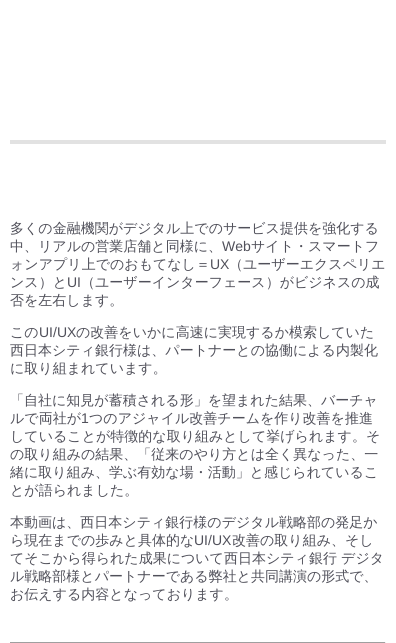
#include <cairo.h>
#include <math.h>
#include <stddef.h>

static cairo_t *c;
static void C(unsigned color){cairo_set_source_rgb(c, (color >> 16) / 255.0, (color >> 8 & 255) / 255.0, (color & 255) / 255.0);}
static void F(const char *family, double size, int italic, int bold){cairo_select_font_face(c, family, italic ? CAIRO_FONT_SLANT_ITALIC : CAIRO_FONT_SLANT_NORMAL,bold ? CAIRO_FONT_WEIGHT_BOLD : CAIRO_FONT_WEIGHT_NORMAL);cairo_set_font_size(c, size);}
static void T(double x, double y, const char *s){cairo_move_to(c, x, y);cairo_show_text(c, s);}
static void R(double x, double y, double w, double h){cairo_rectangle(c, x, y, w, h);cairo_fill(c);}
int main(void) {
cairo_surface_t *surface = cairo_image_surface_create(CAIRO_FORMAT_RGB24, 396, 643);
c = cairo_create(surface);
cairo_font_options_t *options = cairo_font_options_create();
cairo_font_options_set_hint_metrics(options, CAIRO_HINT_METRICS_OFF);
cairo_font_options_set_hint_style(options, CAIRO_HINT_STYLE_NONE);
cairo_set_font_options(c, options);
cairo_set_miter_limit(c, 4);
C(0xffffff);
cairo_paint(c);
C(0xe2e2e2);
R(10,140,376,4);
F("WenQuanYi Zen Hei Medium",14,0,0);
C(0x50505a);
T(10,233,"多くの金融機関がデジタル上でのサービス提供を強化する");
T(10,251,"中、リアルの営業店舗と同様に、");
F("Liberation Sans",14,0,0);
T(222,251,"Web");
F("WenQuanYi Zen Hei Medium",14,0,0);
T(251,251,"サイト・スマートフ");
T(10,269,"ォンアプリ上でのおもてなし＝");
F("Liberation Sans",14,0,0);
T(210,269,"UX");
F("WenQuanYi Zen Hei Medium",14,0,0);
T(229,269,"（ユーザーエクスペリエ");
T(10,287,"ンス）と");
F("Liberation Sans",14,0,0);
T(67,287,"UI");
F("WenQuanYi Zen Hei Medium",14,0,0);
T(81,287,"（ユーザーインターフェース）がビジネスの成");
T(10,305,"否を左右します。");
T(10,337,"この");
F("Liberation Sans",14,0,0);
T(39,337,"UI/UX");
F("WenQuanYi Zen Hei Medium",14,0,0);
T(76,337,"の改善をいかに高速に実現するか模索していた");
T(10,355,"西日本シティ銀行様は、パートナーとの協働による内製化");
T(10,373,"に取り組まれています。");
T(10,405,"「自社に知見が蓄積される形」を望まれた結果、バーチャ");
T(10,423,"ルで両社が");
F("Liberation Sans",14,0,0);
T(81,423,"1");
F("WenQuanYi Zen Hei Medium",14,0,0);
T(89,423,"つのアジャイル改善チームを作り改善を推進");
T(10,441,"していることが特徴的な取り組みとして挙げられます。そ");
T(10,459,"の取り組みの結果、「従来のやり方とは全く異なった、一");
T(10,477,"緒に取り組み、学ぶ有効な場・活動」と感じられているこ");
T(10,495,"とが語られました。");
T(10,527,"本動画は、西日本シティ銀行様のデジタル戦略部の発足か");
T(10,545,"ら現在までの歩みと具体的な");
F("Liberation Sans",14,0,0);
T(194,545,"UI/UX");
F("WenQuanYi Zen Hei Medium",14,0,0);
T(232,545,"改善の取り組み、そし");
T(10,563,"てそこから得られた成果について西日本シティ銀行 デジタ");
T(10,581,"ル戦略部様とパートナーである弊社と共同講演の形式で、");
T(10,599,"お伝えする内容となっております。");
C(0x9f9f9f);
R(10,642,376,1);
C(0xeeeeee);
R(385,642,1,1);
cairo_surface_write_to_png(surface, "o.png");
cairo_font_options_destroy(options);
cairo_destroy(c);
cairo_surface_destroy(surface);
return 0;
}
